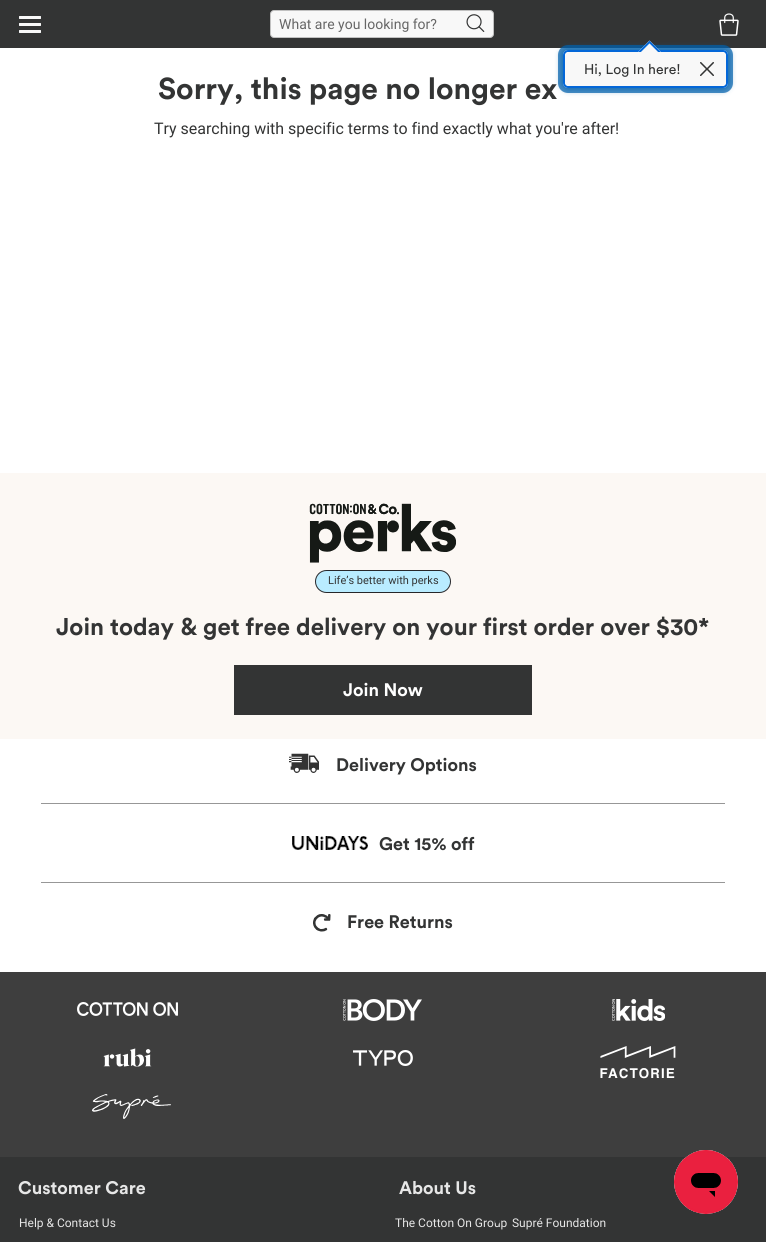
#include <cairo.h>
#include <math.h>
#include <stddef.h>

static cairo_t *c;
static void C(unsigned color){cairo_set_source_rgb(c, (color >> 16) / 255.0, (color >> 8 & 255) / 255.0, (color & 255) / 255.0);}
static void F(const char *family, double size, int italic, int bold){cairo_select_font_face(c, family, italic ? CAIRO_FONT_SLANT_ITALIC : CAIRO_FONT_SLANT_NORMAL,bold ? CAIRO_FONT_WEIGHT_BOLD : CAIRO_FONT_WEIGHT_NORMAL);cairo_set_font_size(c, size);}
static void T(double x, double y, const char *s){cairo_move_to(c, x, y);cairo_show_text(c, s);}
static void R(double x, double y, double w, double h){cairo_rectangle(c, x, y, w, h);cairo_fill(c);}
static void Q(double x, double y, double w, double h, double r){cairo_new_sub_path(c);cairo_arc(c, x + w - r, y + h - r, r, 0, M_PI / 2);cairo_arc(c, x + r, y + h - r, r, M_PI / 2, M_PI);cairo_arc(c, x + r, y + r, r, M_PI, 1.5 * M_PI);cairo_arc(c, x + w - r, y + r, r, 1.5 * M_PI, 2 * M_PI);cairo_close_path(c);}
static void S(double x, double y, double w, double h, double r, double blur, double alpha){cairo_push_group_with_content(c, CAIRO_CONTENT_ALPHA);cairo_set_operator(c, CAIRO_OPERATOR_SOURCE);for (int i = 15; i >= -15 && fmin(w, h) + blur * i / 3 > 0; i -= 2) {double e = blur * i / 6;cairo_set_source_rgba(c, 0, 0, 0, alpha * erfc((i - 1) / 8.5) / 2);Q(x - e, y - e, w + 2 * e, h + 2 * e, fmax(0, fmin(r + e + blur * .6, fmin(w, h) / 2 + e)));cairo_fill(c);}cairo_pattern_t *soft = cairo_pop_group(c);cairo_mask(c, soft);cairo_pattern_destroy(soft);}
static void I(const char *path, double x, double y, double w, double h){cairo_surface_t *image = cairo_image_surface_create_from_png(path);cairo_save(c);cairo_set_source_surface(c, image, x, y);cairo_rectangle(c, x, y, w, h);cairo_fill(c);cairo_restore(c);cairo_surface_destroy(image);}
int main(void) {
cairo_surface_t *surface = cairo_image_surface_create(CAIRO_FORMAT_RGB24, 766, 1242);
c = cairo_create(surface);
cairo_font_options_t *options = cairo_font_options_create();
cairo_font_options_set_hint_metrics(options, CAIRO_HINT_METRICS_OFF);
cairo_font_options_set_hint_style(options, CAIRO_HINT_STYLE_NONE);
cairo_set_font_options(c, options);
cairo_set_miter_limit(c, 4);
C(0xffffff);
cairo_paint(c);
C(0x333434);
R(0,0,766,48);
I("1.png",19,16,22,17);
C(0xf8f8f8);
Q(270.5,10.5,223,27,3.5);
cairo_fill_preserve(c);
C(0xc1c1c1);
cairo_set_line_width(c,1);
cairo_stroke(c);
F("Roboto",14,0,0);
C(0x666666);
T(279,29,"What are you looking for?");
I("2.png",466,14,19,18);
I("3.png",719,13,20,23);
C(0x0060ac);
S(561,48,169,42,7,3,.7);
C(0xffffff);
Q(563,50,165,38,5);
cairo_fill(c);
Q(560.5,47.5,170,43,7.5);
cairo_set_source_rgba(c,0,0.376,0.675,0.7);
cairo_set_line_width(c,5);
cairo_stroke(c);
Q(564,51,163,36,4);
C(0x0367d8);
cairo_set_line_width(c,2);
cairo_stroke(c);
C(0xf8f8f8);
cairo_new_path(c);
cairo_move_to(c,661,52);
cairo_line_to(c,649.5,63.5);
cairo_line_to(c,638,52);
cairo_line_to(c,649.5,40.5);
cairo_close_path(c);
cairo_fill(c);
cairo_new_path(c);
cairo_move_to(c,659.5,52);
cairo_line_to(c,649.5,62);
cairo_line_to(c,639.5,52);
cairo_line_to(c,649.5,42);
cairo_close_path(c);
C(0x0367d8);
cairo_stroke(c);
C(0xf8f8f8);
Q(565,52,161,34,5);
cairo_fill(c);
F("Circular",14,0,0);
C(0x333434);
T(584,74,"Hi, Log In here!");
I("4.png",700,62,14,14);
F("Circular",30,0,1);
T(158,99,"Sorry, this page no longer ex");
F("Roboto",16,0,0);
T(154,134,"Try searching with specific terms to find exactly what you're after!");
C(0xfcf8f4);
R(0,473,766,266);
I("5.png",309,503,148,60);
C(0xb9ecff);
Q(315.5,570.5,135,22,11);
cairo_fill_preserve(c);
C(0x27272a);
cairo_set_line_width(c,1);
cairo_stroke(c);
F("Roboto",11,0,0);
C(0x333434);
T(328,584,"Life’s better with perks");
F("Circular",24,0,1);
T(56,635,"Join today & get free delivery on your first order over $30*");
R(234,665,298,50);
F("Circular",18,0,1);
C(0xffffff);
T(343,696,"Join Now");
I("6.png",289,753,30,20);
C(0x333434);
T(336,771,"Delivery Options");
C(0x979797);
R(41,803,684,1);
I("7.png",292,836,76,14);
C(0x333434);
T(379,850,"Get 15% off");
C(0x979797);
R(41,882,684,1);
I("8.png",313,914,18,18);
C(0x333434);
T(347,928,"Free Returns");
R(0,1157,766,85);
C(0x3e3e3e);
R(0,972,766,185);
I("9.png",77,1002,101,14);
I("10.png",343,999,79,22);
I("11.png",612,999,53,22);
I("12.png",103,1048,49,19);
I("13.png",353,1050,60,16);
I("14.png",600,1046,76,33);
I("15.png",92,1094,79,25);
C(0xe7e7e7);
T(18,1194,"Customer Care");
F("Roboto",12,0,0);
T(19,1227,"Help & Contact Us");
F("Circular",18,0,1);
T(399,1194,"About Us");
F("Roboto",12,0,0);
T(395,1227,"The Cotton On Group");
C(0x333434);
cairo_new_path(c);
cairo_arc(c,497.5,1221.5,2.5,0,2 * M_PI);
cairo_fill(c);
C(0xe7e7e7);
T(512,1227,"Supré Foundation");
I("16.png",674,1150,64,64);
cairo_surface_write_to_png(surface, "o.png");
cairo_font_options_destroy(options);
cairo_destroy(c);
cairo_surface_destroy(surface);
return 0;
}
